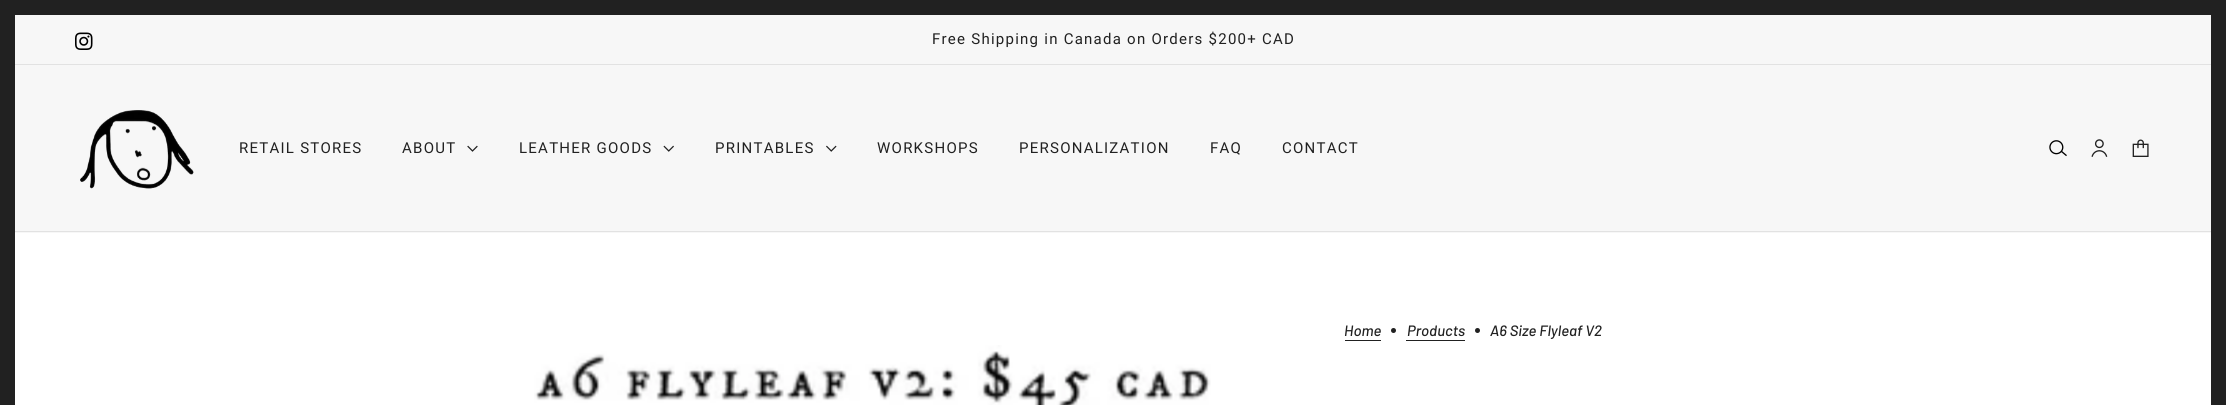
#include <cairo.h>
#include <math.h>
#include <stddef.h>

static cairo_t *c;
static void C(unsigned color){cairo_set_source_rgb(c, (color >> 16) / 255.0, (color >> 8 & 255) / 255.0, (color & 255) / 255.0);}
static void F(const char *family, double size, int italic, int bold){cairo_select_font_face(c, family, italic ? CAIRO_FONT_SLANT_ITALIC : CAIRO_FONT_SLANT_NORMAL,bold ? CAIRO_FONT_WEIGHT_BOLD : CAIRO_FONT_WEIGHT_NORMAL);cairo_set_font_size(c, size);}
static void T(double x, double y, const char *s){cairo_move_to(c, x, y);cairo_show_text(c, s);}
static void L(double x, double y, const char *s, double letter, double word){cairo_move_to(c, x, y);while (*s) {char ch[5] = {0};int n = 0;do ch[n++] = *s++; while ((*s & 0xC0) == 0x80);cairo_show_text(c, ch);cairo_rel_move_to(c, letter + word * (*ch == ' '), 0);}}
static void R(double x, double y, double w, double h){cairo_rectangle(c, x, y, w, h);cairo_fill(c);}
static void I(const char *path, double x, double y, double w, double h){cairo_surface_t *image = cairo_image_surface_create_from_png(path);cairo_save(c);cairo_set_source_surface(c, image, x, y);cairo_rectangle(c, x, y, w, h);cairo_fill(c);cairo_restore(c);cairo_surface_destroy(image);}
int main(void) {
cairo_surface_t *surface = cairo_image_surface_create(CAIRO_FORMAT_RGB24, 2226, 405);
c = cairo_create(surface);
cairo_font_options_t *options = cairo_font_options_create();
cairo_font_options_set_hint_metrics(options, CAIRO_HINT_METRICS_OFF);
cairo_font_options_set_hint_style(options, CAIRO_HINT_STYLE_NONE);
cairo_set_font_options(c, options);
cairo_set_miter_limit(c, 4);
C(0xffffff);
cairo_paint(c);
cairo_rectangle(c,7.5,7.5,2211,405);
C(0x212121);
cairo_set_line_width(c,15);
cairo_stroke(c);
C(0xf7f7f7);
R(15,15,2196,49);
C(0xe2e2e2);
R(15,64,2196,1);
I("1.png",75,32,18,18);
F("Roboto",15,0,0);
C(0x212121);
L(932,44,"Free Shipping in Canada on Orders $200+ CAD",1.25,0);
C(0xf7f7f7);
R(15,65,2196,168);
I("2.png",80,110,114,79);
C(0x212121);
L(239,153,"RETAIL STORES",1.25,0);
L(402,153,"ABOUT",1.25,0);
I("3.png",467,145,11,7);
L(519,153,"LEATHER GOODS",1.25,0);
I("4.png",663,145,11,7);
L(715,153,"PRINTABLES",1.25,0);
I("5.png",826,145,11,7);
L(877,153,"WORKSHOPS",1.25,0);
L(1019,153,"PERSONALIZATION",1.25,0);
L(1210,153,"FAQ",1.25,0);
L(1282,153,"CONTACT",1.25,0);
I("6.png",2049,140,18,17);
I("7.png",2091,139,17,18);
I("8.png",2132,139,17,18);
C(0xe2e2e2);
R(15,231,2196,1);
F("Barlow Medium",15,1,0);
C(0x212121);
T(1344,336,"Home");
R(1345,340,36,1);
cairo_new_path(c);
cairo_arc(c,1393.5,330.5,2.5,0,2 * M_PI);
cairo_fill(c);
T(1407,336,"Products");
R(1406,340,59,1);
cairo_new_path(c);
cairo_arc(c,1477.5,330.5,2.5,0,2 * M_PI);
cairo_fill(c);
T(1490,336,"A6 Size Flyleaf V2");
I("9.png",534,345,677,60);
cairo_surface_write_to_png(surface, "o.png");
cairo_font_options_destroy(options);
cairo_destroy(c);
cairo_surface_destroy(surface);
return 0;
}
